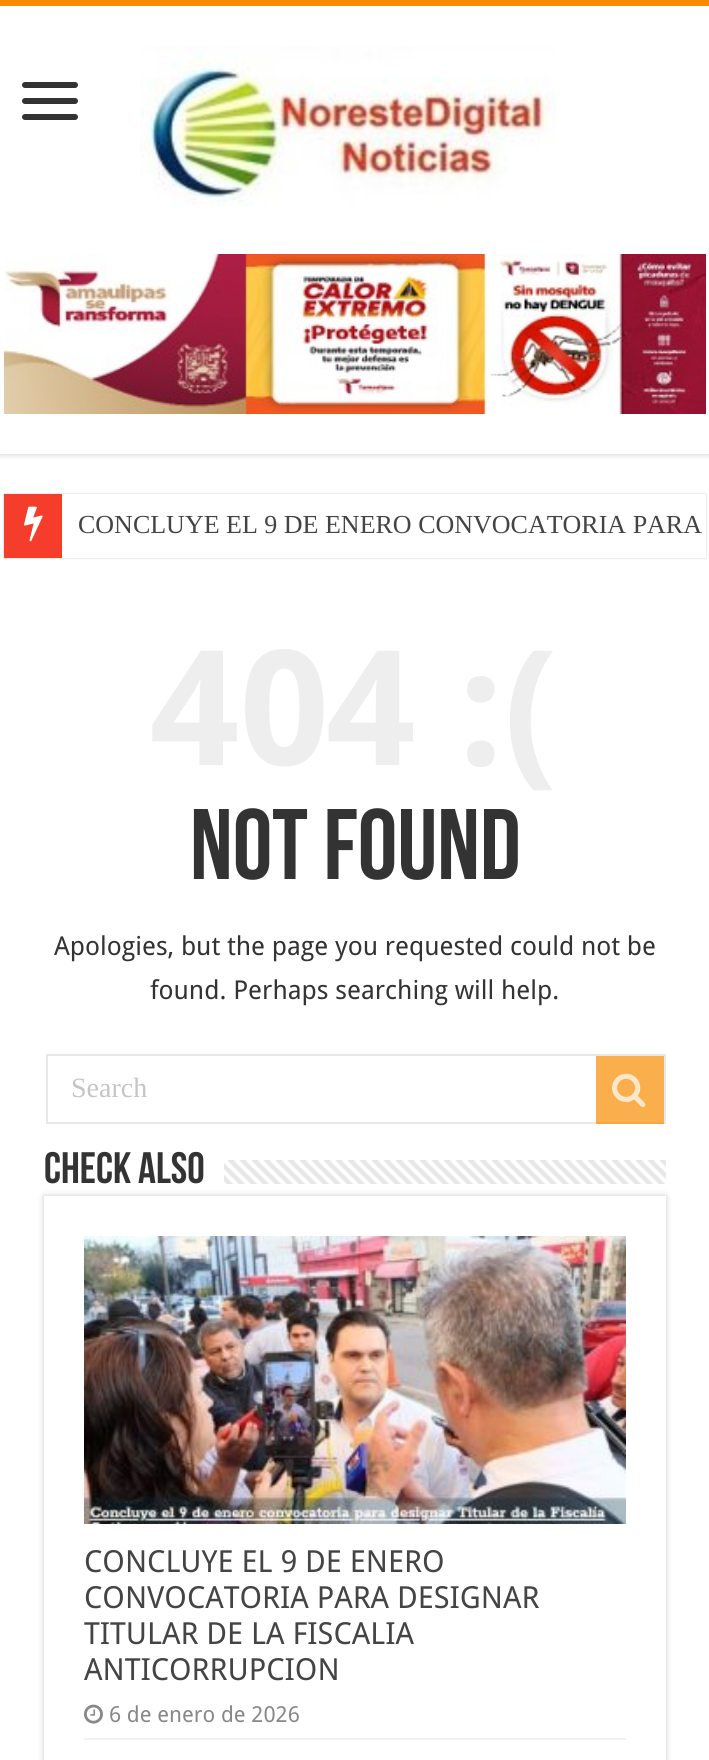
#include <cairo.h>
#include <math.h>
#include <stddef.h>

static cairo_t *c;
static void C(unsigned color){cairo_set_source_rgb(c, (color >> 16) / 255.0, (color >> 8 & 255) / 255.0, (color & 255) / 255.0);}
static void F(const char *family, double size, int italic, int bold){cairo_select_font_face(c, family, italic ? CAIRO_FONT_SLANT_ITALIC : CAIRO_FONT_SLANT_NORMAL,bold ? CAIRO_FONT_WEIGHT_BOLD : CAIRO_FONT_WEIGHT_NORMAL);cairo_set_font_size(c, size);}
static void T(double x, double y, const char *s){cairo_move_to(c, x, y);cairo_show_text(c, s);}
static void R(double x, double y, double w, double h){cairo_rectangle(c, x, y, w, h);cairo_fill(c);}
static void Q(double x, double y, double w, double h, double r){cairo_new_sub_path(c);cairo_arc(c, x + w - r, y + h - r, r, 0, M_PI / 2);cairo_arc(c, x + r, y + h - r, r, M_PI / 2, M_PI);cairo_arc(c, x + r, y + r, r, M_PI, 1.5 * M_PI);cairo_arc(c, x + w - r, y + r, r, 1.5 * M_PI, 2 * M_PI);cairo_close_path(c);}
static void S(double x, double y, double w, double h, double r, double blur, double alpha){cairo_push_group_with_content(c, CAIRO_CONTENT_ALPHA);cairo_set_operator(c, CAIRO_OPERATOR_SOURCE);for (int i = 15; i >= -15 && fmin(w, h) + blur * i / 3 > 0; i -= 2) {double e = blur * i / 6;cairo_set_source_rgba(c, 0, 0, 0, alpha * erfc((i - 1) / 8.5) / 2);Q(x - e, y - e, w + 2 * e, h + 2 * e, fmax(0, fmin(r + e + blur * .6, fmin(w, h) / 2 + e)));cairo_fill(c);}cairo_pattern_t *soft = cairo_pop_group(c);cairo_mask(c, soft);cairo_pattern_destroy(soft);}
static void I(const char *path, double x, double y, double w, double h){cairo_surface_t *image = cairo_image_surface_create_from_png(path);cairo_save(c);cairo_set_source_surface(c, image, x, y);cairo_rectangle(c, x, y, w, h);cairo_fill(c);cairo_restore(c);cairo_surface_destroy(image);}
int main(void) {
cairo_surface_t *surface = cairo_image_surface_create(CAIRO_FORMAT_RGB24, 709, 1760);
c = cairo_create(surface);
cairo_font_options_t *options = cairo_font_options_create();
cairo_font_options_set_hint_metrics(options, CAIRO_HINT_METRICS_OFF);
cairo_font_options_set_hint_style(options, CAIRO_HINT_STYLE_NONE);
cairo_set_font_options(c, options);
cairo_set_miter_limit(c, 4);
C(0xffffff);
cairo_paint(c);
cairo_save(c);
cairo_rectangle(c,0,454,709,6);
cairo_clip(c);
C(0xcacaca);
S(0,0,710,454,0,3,1);
cairo_restore(c);
C(0xf88c00);
R(0,0,709,6);
C(0x333333);
Q(22,82,56,6,3);
cairo_fill(c);
Q(22,98,56,6,3);
cairo_fill(c);
Q(22,114,56,6,3);
cairo_fill(c);
I("1.png",140,46,417,161);
I("2.png",4,254,702,160);
cairo_save(c);
cairo_set_fill_rule(c,CAIRO_FILL_RULE_EVEN_ODD);
cairo_new_path(c);
cairo_move_to(c,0,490);
cairo_line_to(c,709,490);
cairo_line_to(c,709,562);
cairo_line_to(c,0,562);
cairo_close_path(c);
cairo_move_to(c,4,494);
cairo_line_to(c,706,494);
cairo_line_to(c,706,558);
cairo_line_to(c,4,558);
cairo_close_path(c);
cairo_clip(c);
C(0xcacaca);
S(4,494,702,64,0,1,1);
cairo_restore(c);
C(0xf43d2a);
R(4,494,58,64);
I("3.png",24,506,19,36);
F("Liberation Serif",26,0,0);
C(0x444444);
T(78,533,"CONCLUYE EL 9 DE ENERO CONVOCATORIA PARA");
F("Droid Sans",160,0,1);
C(0xeeeeee);
T(152,765,"404 :(");
F("Bebas Neue",100,0,1);
C(0x333333);
T(190,879,"Not Found");
F("Droid Sans",26,0,0);
T(54,955,"Apologies, but the page you requested could not be");
T(150,999,"found. Perhaps searching will help.");
cairo_rectangle(c,47,1055,618,68);
C(0xe8e8e8);
cairo_stroke(c);
F("Liberation Serif",28,0,0);
C(0xc5c5c5);
T(71,1097,"Search");
cairo_set_source_rgba(c,0.973,0.549,0,0.7);
R(596,1056,68,68);
I("4.png",612,1073,34,35);
F("Bebas Neue",44,0,1);
C(0x333333);
T(44,1183,"Check Also");
I("5.png",224,1160,442,24);
cairo_save(c);
cairo_set_fill_rule(c,CAIRO_FILL_RULE_EVEN_ODD);
cairo_new_path(c);
cairo_move_to(c,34,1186);
cairo_line_to(c,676,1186);
cairo_line_to(c,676,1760);
cairo_line_to(c,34,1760);
cairo_close_path(c);
cairo_move_to(c,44,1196);
cairo_line_to(c,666,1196);
cairo_line_to(c,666,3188);
cairo_line_to(c,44,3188);
cairo_close_path(c);
cairo_clip(c);
C(0xcacaca);
S(44,1196,622,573,0,3,1);
cairo_restore(c);
I("6.png",84,1236,542,288);
F("Droid Sans",30.4,0,0);
C(0x444444);
T(84,1572,"CONCLUYE EL 9 DE ENERO");
T(84,1608,"CONVOCATORIA PARA DESIGNAR");
T(84,1644,"TITULAR DE LA FISCALIA");
T(84,1680,"ANTICORRUPCION");
C(0xf2f2f2);
R(84,1738,542,2);
I("7.png",84,1704,19,20);
F("Droid Sans",22,0,0);
C(0x888888);
T(109,1722,"6 de enero de 2026");
cairo_surface_write_to_png(surface, "o.png");
cairo_font_options_destroy(options);
cairo_destroy(c);
cairo_surface_destroy(surface);
return 0;
}
